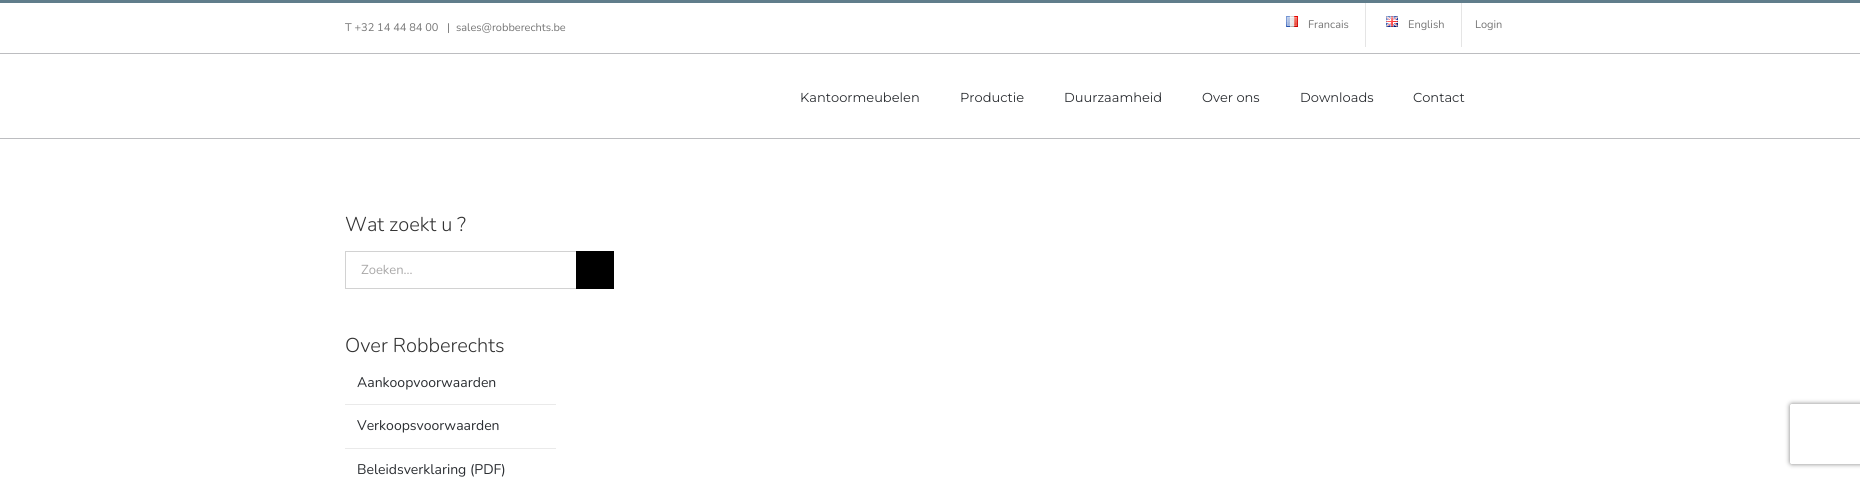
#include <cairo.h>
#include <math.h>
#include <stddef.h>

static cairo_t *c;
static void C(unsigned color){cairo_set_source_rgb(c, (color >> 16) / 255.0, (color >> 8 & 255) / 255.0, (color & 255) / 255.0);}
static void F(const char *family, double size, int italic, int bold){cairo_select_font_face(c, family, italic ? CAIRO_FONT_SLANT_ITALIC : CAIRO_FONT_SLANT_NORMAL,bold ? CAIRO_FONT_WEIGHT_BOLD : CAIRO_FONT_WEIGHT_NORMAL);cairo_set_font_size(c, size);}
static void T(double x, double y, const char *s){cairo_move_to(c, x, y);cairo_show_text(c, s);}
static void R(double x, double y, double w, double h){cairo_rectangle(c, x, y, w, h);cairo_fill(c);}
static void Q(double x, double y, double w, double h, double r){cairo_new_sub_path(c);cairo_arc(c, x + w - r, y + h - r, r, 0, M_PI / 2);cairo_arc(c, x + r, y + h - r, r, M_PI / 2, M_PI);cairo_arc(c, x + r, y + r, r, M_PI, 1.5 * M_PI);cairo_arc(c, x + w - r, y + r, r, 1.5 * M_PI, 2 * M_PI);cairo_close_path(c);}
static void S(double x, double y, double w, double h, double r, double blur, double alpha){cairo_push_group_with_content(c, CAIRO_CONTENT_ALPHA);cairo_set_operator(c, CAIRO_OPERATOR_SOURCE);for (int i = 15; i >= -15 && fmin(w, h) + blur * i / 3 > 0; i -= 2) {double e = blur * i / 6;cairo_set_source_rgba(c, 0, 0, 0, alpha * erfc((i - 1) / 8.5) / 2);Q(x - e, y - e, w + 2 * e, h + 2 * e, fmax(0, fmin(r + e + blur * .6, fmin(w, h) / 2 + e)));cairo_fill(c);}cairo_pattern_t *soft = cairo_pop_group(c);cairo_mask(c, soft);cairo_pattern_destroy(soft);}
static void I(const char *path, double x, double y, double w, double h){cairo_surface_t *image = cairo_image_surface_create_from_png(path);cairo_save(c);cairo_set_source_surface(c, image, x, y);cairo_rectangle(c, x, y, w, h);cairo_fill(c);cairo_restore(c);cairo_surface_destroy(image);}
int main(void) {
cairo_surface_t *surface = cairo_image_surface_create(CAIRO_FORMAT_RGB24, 1860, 478);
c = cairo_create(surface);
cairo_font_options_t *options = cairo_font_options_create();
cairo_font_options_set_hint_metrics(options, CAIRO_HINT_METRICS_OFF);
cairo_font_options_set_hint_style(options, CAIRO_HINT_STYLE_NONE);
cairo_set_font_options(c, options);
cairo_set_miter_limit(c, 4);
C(0xffffff);
cairo_paint(c);
C(0x607d8b);
R(0,0,1860,3);
C(0xbcbdc0);
R(0,53,1860,1);
F("Nunito",11,0,0);
C(0x747474);
T(345,31,"T +32 14 44 84 00");
T(447,31,"|");
T(456,31,"sales@robberechts.be");
I("1.png",1286,16,12,11);
T(1308,28,"Francais");
C(0xe5e5e5);
R(1365,3,1,44);
I("2.png",1386,16,12,11);
C(0x747474);
T(1408,28,"English");
C(0xe5e5e5);
R(1461,3,1,44);
C(0x747474);
T(1475,28,"Login");
C(0xbcbdc0);
R(0,138,1860,1);
F("Montserrat Thin",13,0,0);
C(0x2b2e32);
T(800,102,"Kantoormeubelen");
T(960,102,"Productie");
T(1064,102,"Duurzaamheid");
T(1202,102,"Over ons");
T(1300,102,"Downloads");
T(1413,102,"Contact");
F("Nunito Light",20,0,0);
C(0x333333);
T(345,231,"Wat zoekt u ?");
C(0xd2d2d2);
R(345,251,231,1);
R(345,288,231,1);
R(345,251,1,38);
F("Nunito",13,0,0);
C(0xaaa9a9);
T(361,274,"Zoeken...");
C(0x000000);
R(576,251,38,38);
F("Nunito Light",20,0,0);
C(0x333333);
T(345,352,"Over Robberechts");
C(0xeaeaea);
R(345,404,211,1);
F("Nunito",14,0,0);
C(0x2b2e32);
T(357,387,"Aankoopvoorwaarden");
C(0xeaeaea);
R(345,448,211,1);
C(0x2b2e32);
T(357,430,"Verkoopsvoorwaarden");
T(357,474,"Beleidsverklaring (PDF)");
cairo_save(c);
cairo_set_fill_rule(c,CAIRO_FILL_RULE_EVEN_ODD);
cairo_new_path(c);
cairo_move_to(c,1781,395);
cairo_line_to(c,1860,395);
cairo_line_to(c,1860,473);
cairo_line_to(c,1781,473);
cairo_close_path(c);
cairo_move_to(c,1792,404);
cairo_line_to(c,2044,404);
cairo_curve_to(c,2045,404,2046,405,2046,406);
cairo_line_to(c,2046,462);
cairo_curve_to(c,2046,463,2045,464,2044,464);
cairo_line_to(c,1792,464);
cairo_curve_to(c,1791,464,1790,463,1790,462);
cairo_line_to(c,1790,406);
cairo_curve_to(c,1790,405,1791,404,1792,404);
cairo_close_path(c);
cairo_clip(c);
C(0x808080);
S(1790,404,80,60,2,2.5,1);
cairo_restore(c);
cairo_surface_write_to_png(surface, "o.png");
cairo_font_options_destroy(options);
cairo_destroy(c);
cairo_surface_destroy(surface);
return 0;
}
